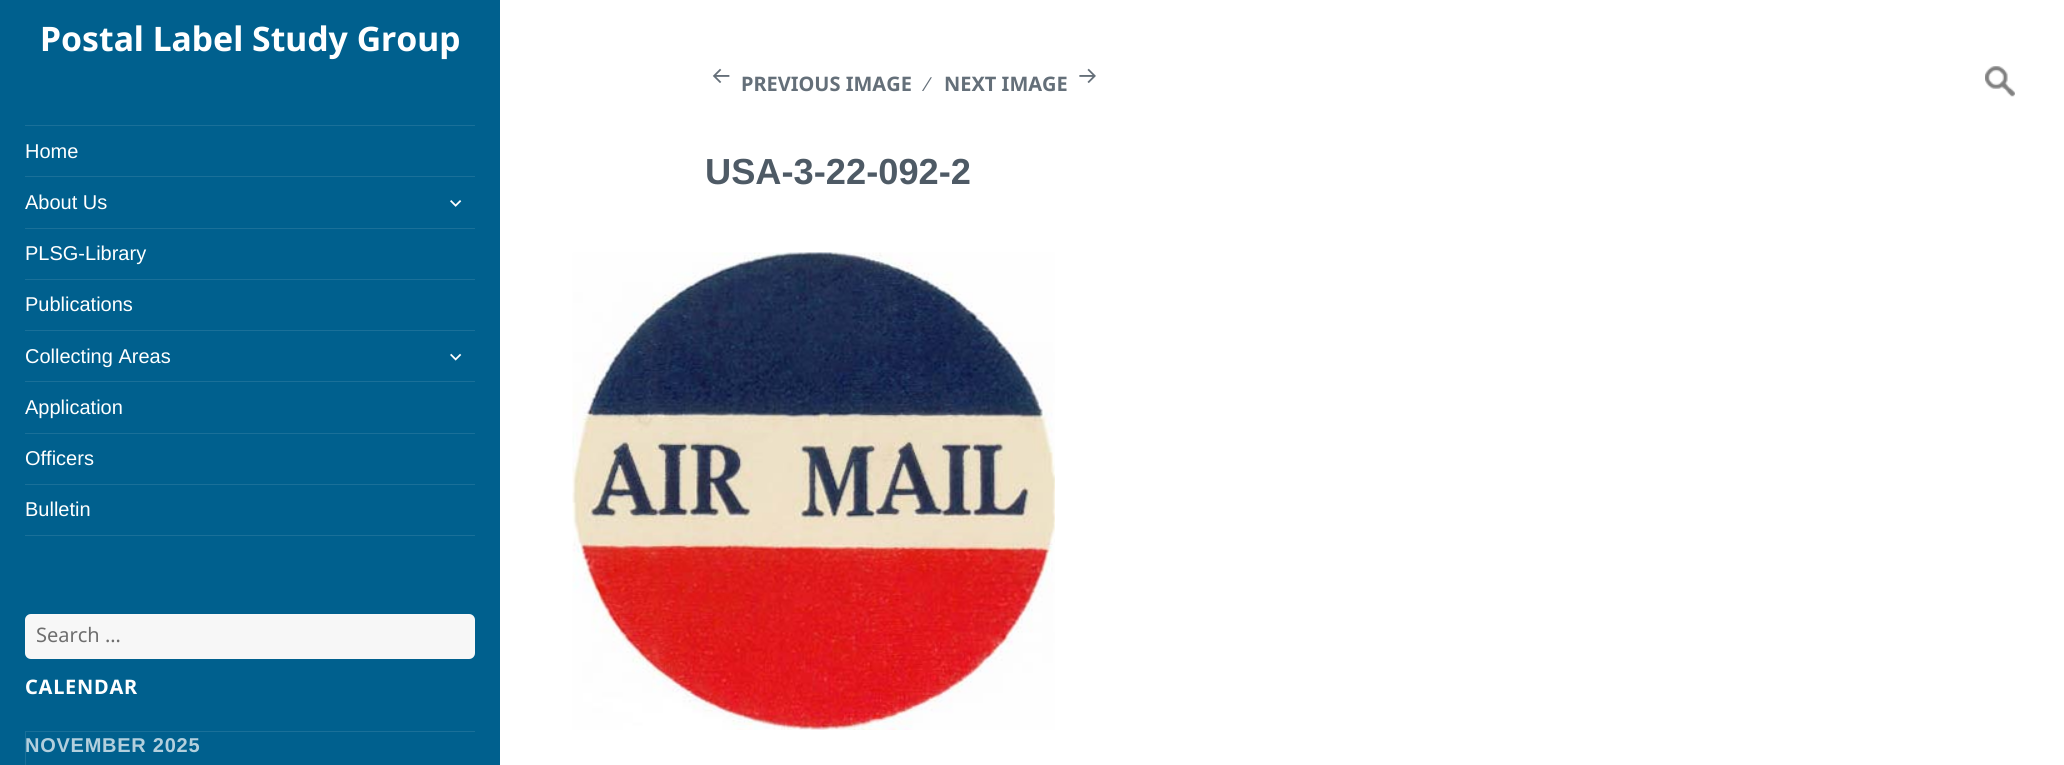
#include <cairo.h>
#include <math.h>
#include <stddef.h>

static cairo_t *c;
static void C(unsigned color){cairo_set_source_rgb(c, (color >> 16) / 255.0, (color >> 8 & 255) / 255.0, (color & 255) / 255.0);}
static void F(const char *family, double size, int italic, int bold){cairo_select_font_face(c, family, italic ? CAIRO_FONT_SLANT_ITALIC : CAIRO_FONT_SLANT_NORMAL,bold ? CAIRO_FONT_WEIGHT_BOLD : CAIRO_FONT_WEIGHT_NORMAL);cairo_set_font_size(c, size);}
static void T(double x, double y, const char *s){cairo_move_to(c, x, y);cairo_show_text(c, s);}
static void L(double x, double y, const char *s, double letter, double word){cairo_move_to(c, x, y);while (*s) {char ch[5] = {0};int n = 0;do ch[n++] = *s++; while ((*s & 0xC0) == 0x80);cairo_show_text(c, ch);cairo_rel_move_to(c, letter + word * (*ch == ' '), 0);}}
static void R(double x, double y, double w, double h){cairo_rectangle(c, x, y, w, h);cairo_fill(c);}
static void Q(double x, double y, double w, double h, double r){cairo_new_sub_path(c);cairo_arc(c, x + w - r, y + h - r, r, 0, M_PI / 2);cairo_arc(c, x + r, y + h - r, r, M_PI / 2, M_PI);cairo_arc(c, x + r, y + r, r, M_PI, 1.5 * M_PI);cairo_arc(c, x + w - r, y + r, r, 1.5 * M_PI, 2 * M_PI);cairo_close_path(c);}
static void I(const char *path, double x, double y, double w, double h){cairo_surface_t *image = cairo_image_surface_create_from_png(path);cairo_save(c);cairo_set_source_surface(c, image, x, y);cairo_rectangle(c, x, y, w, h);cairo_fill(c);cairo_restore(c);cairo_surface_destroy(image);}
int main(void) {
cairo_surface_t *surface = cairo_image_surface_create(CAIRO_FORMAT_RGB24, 2064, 765);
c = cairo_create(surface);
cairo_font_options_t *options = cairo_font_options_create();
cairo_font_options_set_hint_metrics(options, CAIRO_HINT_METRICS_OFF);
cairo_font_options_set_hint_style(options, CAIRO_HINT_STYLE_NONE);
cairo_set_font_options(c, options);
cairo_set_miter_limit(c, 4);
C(0xffffff);
cairo_paint(c);
C(0x00608e);
R(0,0,500,765);
F("Noto Sans",33.75,0,1);
C(0xffffff);
T(40,51,"Postal Label Study Group");
C(0x1a7099);
R(25,125,450,1);
R(25,535,450,1);
F("Liberation Sans",20,0,0);
C(0xffffff);
T(25,158,"Home");
C(0x1a7099);
R(25,176,450,1);
C(0xffffff);
T(25,209,"About Us");
I("1.png",450,200,12,7);
C(0x1a7099);
R(25,228,450,1);
C(0xffffff);
T(25,260,"PLSG-Library");
C(0x1a7099);
R(25,279,450,1);
C(0xffffff);
T(25,311,"Publications");
C(0x1a7099);
R(25,330,450,1);
C(0xffffff);
T(25,363,"Collecting Areas");
I("2.png",450,353,12,8);
C(0x1a7099);
R(25,381,450,1);
C(0xffffff);
T(25,414,"Application");
C(0x1a7099);
R(25,433,450,1);
C(0xffffff);
T(25,465,"Officers");
C(0x1a7099);
R(25,484,450,1);
C(0xffffff);
T(25,516,"Bulletin");
C(0xf7f7f7);
Q(25,614,450,45,6);
cairo_fill(c);
Q(25.5,614.5,449,44,5.5);
cairo_set_source_rgba(c,1,1,1,0.1);
cairo_set_line_width(c,1);
cairo_stroke(c);
F("Noto Sans",20,0,0);
C(0x6e6e6e);
T(36,642,"Search …");
F("Noto Sans",20,0,1);
C(0xffffff);
L(25,694,"CALENDAR",.75,0);
C(0x1a7099);
cairo_new_path(c);
cairo_move_to(c,25,731);
cairo_line_to(c,475,731);
cairo_line_to(c,475,732);
cairo_line_to(c,26,732);
cairo_close_path(c);
cairo_fill(c);
cairo_set_source_rgba(c,1,1,1,0.1);
cairo_new_path(c);
cairo_move_to(c,25,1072);
cairo_line_to(c,25,731);
cairo_line_to(c,26,732);
cairo_line_to(c,26,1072);
cairo_close_path(c);
cairo_fill(c);
F("Liberation Sans",20,0,1);
C(0xb3cfdd);
L(25,752,"NOVEMBER 2025",.75,0);
I("3.png",712,68,18,15);
F("Noto Sans",20,0,1);
C(0x646f79);
T(741,91,"PREVIOUS IMAGE");
F("Liberation Sans",20,0,0);
T(926,91,"∕");
F("Noto Sans",20,0,1);
T(944,91,"NEXT IMAGE");
I("4.png",1079,68,17,15);
F("Liberation Sans",36.25,0,1);
C(0x4e5a65);
T(705,184,"USA-3-22-092-2");
I("5.png",572,252,483,478);
I("6.png",1985,66,30,31);
cairo_surface_write_to_png(surface, "o.png");
cairo_font_options_destroy(options);
cairo_destroy(c);
cairo_surface_destroy(surface);
return 0;
}
